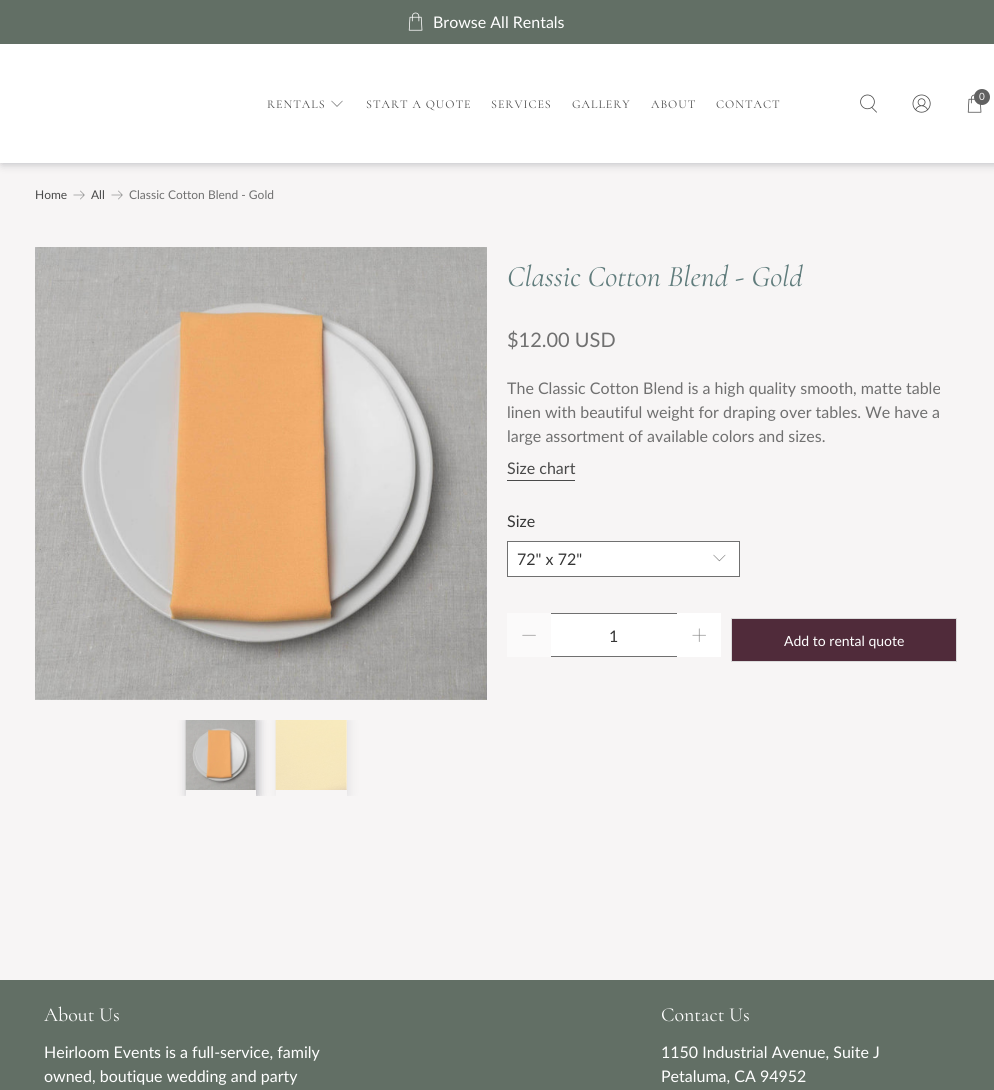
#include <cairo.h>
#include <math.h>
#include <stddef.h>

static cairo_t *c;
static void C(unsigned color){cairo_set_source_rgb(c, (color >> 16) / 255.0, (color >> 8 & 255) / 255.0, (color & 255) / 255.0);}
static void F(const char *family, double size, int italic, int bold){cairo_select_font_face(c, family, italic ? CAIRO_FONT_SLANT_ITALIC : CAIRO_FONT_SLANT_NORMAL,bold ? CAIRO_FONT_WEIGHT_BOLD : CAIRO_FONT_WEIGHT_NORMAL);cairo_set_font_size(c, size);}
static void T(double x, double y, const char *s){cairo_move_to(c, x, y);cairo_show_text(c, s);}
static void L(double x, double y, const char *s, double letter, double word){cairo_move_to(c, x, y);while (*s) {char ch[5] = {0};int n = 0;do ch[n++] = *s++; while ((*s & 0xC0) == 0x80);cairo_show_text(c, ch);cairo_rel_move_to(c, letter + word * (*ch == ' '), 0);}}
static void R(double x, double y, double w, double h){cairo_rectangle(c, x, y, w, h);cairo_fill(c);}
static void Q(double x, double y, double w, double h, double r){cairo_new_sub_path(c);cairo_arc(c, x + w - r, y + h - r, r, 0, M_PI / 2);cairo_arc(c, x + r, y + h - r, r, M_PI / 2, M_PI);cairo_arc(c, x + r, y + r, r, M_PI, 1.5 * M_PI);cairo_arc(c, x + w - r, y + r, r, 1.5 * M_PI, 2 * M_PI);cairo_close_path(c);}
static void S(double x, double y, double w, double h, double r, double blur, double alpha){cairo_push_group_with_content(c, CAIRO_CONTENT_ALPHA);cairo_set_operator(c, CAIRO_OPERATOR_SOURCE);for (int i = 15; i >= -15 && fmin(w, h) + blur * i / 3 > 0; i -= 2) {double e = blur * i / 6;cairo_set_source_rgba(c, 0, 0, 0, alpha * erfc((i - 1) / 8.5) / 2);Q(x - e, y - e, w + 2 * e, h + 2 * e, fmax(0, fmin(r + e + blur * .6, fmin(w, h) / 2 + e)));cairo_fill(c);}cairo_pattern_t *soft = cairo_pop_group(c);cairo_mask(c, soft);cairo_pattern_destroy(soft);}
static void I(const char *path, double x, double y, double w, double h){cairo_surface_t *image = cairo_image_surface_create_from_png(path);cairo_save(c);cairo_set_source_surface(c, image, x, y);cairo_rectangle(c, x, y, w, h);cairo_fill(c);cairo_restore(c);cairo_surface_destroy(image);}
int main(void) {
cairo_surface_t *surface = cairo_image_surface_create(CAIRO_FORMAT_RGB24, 994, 1090);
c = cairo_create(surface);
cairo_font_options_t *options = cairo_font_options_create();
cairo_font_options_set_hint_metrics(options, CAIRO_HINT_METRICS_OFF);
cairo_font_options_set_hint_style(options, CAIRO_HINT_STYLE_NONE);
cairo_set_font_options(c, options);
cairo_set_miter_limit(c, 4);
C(0xf7f5f5);
cairo_paint(c);
C(0x292c3d);
S(2,44,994,119,0,5,.34);
C(0x626f65);
R(0,0,994,44);
I("1.png",408,12,15,19);
F("Lato",16,0,0);
C(0xffffff);
T(433,28,"Browse All Rentals");
R(0,44,994,119);
I("2.png",860,94,17,19);
I("3.png",912,94,19,19);
I("4.png",967,94,15,19);
C(0x616161);
cairo_arc(c,982,97,8,0,2 * M_PI);
cairo_fill(c);
F("Lato",10,0,0);
C(0xf7f5f5);
T(979,100,"0");
F("Cormorant",12,0,0);
C(0x494949);
L(267,108,"RENTALS",1,0);
I("5.png",331,100,12,7);
L(366,108,"START A QUOTE",1,0);
L(491,108,"SERVICES",1,0);
L(572,108,"GALLERY",1,0);
L(651,108,"ABOUT",1,0);
L(716,108,"CONTACT",1,0);
F("Lato",12,0,0);
T(35,199,"Home");
I("6.png",73,190,12,10);
T(91,199,"All");
I("6.png",111,190,12,10);
C(0x707070);
T(129,199,"Classic Cotton Blend - Gold");
I("7.png",35,247,452,453);
cairo_save(c);
cairo_rectangle(c,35,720,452,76);
cairo_clip(c);
cairo_set_fill_rule(c,CAIRO_FILL_RULE_EVEN_ODD);
cairo_new_path(c);
cairo_move_to(c,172,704);
cairo_line_to(c,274,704);
cairo_line_to(c,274,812);
cairo_line_to(c,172,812);
cairo_close_path(c);
cairo_move_to(c,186,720);
cairo_line_to(c,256,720);
cairo_line_to(c,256,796);
cairo_line_to(c,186,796);
cairo_close_path(c);
cairo_clip(c);
C(0x292c3d);
S(188,720,70,76,0,5,.34);
cairo_restore(c);
I("8.png",185,720,71,70);
cairo_save(c);
cairo_rectangle(c,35,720,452,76);
cairo_clip(c);
cairo_set_fill_rule(c,CAIRO_FILL_RULE_EVEN_ODD);
cairo_new_path(c);
cairo_move_to(c,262,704);
cairo_line_to(c,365,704);
cairo_line_to(c,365,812);
cairo_line_to(c,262,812);
cairo_close_path(c);
cairo_move_to(c,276,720);
cairo_line_to(c,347,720);
cairo_line_to(c,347,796);
cairo_line_to(c,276,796);
cairo_close_path(c);
cairo_clip(c);
C(0xb9b9be);
S(278,720,71,76,0,5,.34);
cairo_restore(c);
I("9.png",275,720,72,70);
F("Cormorant",30,1,0);
C(0x607c7c);
T(507,286,"Classic Cotton Blend - Gold");
F("Lato",20,0,0);
C(0x707070);
T(507,347,"$12.00 USD");
F("Lato",16,0,0);
T(507,394,"The Classic Cotton Blend is a high quality smooth, matte table");
T(507,418,"linen with beautiful weight for draping over tables. We have a");
T(507,442,"large assortment of available colors and sizes.");
C(0x494949);
R(507,480,68,1);
T(507,474,"Size chart");
C(0x363636);
T(507,527,"Size");
C(0xffffff);
cairo_rectangle(c,507.5,541.5,232,35);
cairo_fill_preserve(c);
C(0x707070);
cairo_set_line_width(c,1);
cairo_stroke(c);
C(0x363636);
T(517,565,"72\" x 72\"");
I("10.png",713,554,13,8);
C(0xfbfafa);
R(507,613,44,44);
I("11.png",522,634,14,2);
C(0xffffff);
R(551,614,126,42);
C(0x707070);
R(551,613,126,1);
R(551,656,126,1);
C(0x363636);
T(609,642,"1");
C(0xffffff);
R(677,613,44,44);
I("12.png",692,628,14,14);
C(0x502b3a);
cairo_rectangle(c,731.5,618.5,225,43);
cairo_fill_preserve(c);
C(0xdbdbdb);
cairo_stroke(c);
F("Lato",14,0,0);
C(0xffffff);
T(784,646,"Add to rental quote");
C(0x626f65);
R(0,980,994,110);
F("Cormorant",20,0,0);
C(0xffffff);
T(44,1021,"About Us");
F("Lato",16,0,0);
T(44,1058,"Heirloom Events is a full-service, family");
T(44,1082,"owned, boutique wedding and party");
F("Cormorant",20,0,0);
T(661,1021,"Contact Us");
F("Lato",16,0,0);
T(661,1058,"1150 Industrial Avenue, Suite J");
T(661,1082,"Petaluma, CA 94952");
cairo_surface_write_to_png(surface, "o.png");
cairo_font_options_destroy(options);
cairo_destroy(c);
cairo_surface_destroy(surface);
return 0;
}
